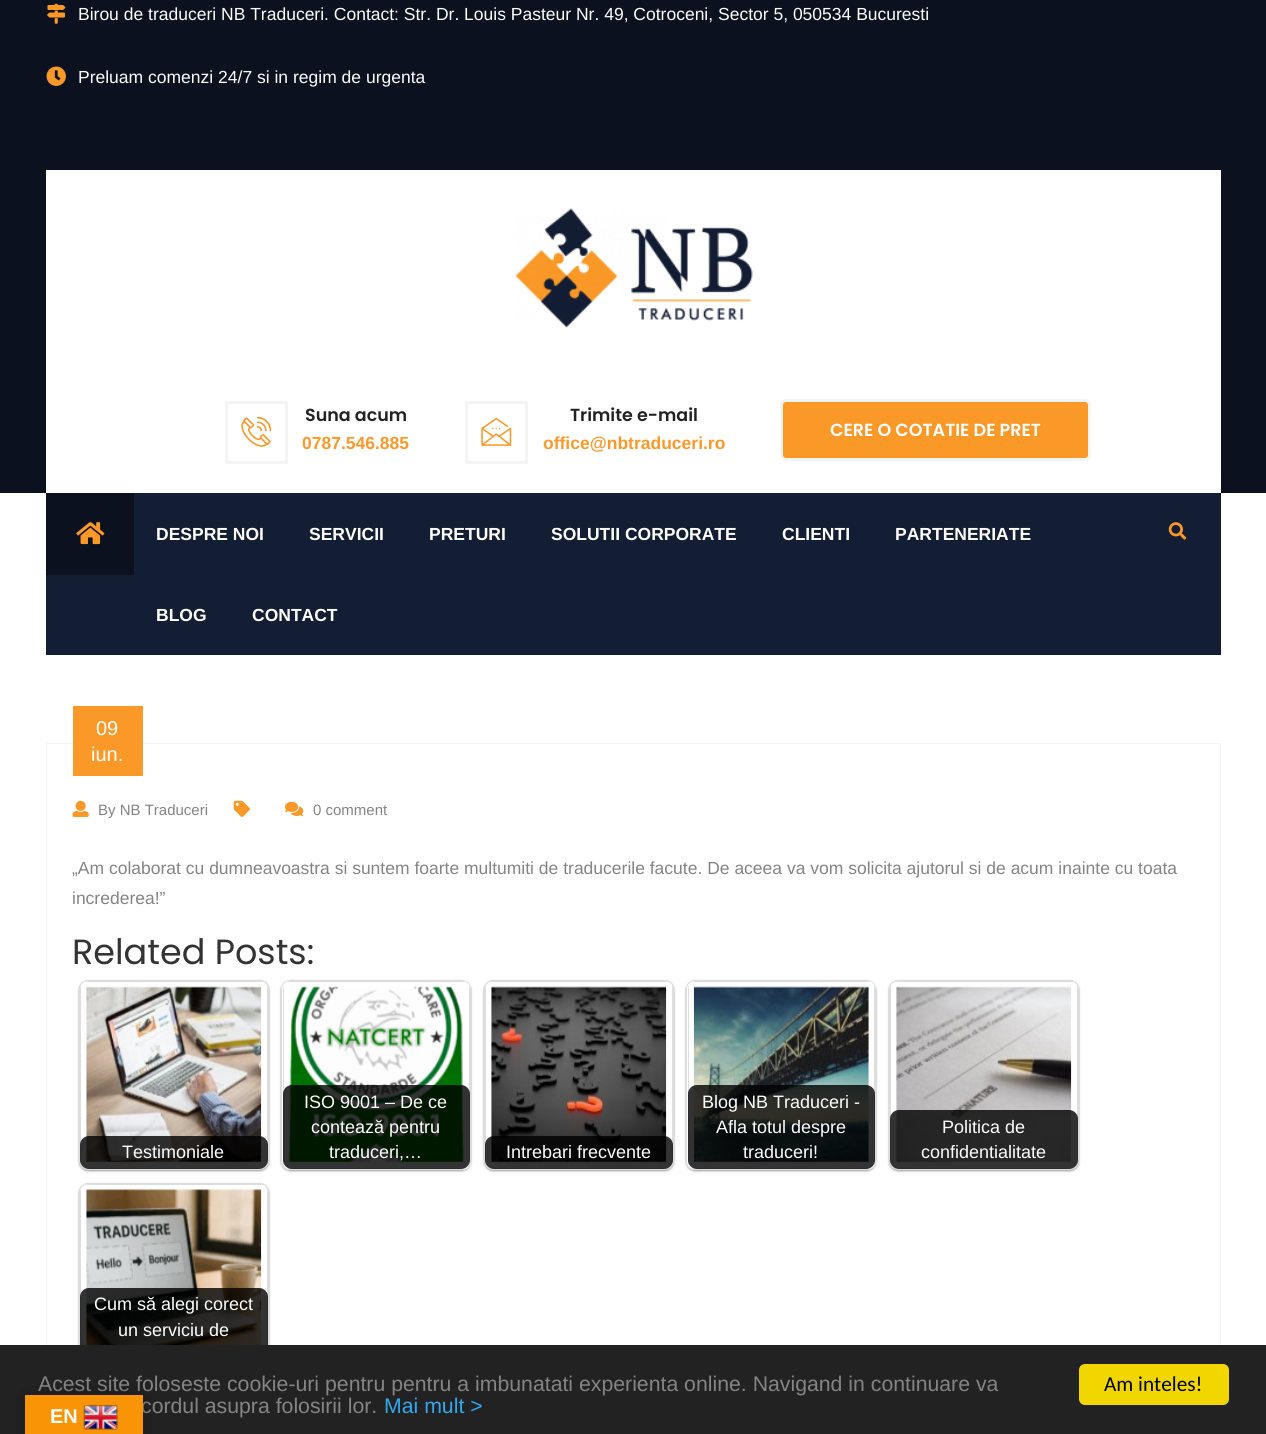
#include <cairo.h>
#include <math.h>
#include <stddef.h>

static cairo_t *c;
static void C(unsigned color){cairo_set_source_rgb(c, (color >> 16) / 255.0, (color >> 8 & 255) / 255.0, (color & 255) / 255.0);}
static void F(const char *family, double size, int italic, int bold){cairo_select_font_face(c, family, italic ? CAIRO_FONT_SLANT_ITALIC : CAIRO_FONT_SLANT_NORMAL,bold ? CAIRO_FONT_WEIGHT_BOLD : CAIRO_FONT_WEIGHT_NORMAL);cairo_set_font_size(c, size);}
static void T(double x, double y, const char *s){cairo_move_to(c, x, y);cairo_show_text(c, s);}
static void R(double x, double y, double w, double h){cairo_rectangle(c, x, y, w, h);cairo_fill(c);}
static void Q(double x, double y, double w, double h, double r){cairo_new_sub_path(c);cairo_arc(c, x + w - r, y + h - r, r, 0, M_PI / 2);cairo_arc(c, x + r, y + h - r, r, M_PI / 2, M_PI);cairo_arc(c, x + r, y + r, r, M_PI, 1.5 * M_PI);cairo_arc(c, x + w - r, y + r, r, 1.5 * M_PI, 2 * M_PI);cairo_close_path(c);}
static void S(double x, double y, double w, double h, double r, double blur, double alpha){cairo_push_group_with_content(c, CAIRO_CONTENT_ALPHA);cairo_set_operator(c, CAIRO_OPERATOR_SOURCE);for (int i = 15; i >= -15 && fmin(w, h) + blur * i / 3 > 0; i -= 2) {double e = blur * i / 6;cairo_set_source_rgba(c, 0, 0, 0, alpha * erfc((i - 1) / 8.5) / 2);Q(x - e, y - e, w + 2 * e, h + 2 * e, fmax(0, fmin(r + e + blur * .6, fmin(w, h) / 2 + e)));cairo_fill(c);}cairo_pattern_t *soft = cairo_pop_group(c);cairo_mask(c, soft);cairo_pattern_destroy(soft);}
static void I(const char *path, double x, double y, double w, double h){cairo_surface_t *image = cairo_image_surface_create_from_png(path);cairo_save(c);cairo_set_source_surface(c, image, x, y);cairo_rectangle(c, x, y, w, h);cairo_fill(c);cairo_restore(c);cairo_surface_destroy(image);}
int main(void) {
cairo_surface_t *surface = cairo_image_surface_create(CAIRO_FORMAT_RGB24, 1266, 1434);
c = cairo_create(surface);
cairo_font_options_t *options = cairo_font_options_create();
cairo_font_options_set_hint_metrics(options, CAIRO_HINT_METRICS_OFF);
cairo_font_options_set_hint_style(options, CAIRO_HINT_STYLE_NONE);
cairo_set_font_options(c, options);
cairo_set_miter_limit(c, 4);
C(0xffffff);
cairo_paint(c);
C(0x0b111e);
R(0,0,1266,493);
I("1.png",47,3,19,21);
F("Liberation Sans",17.5,0,0);
C(0xffffff);
T(78,20,"Birou de traduceri NB Traduceri. Contact: Str. Dr. Louis Pasteur Nr. 49, Cotroceni, Sector 5, 050534 Bucuresti");
I("2.png",46,66,20,20);
T(78,83,"Preluam comenzi 24/7 si in regim de urgenta");
R(46,170,1175,323);
I("3.png",515,208,238,120);
cairo_rectangle(c,226.5,402.5,60,60);
C(0xf4f4f4);
cairo_set_line_width(c,3);
cairo_stroke(c);
I("4.png",241,416,31,31);
F("Poppins SemiBold",17.5,0,0);
C(0x222222);
T(305,421,"Suna acum");
F("Liberation Sans",17.5,0,1);
C(0xfa9928);
T(302,449,"0787.546.885");
cairo_rectangle(c,466.5,402.5,60,60);
C(0xf4f4f4);
cairo_stroke(c);
I("5.png",481,417,31,29);
F("Poppins SemiBold",17.5,0,0);
C(0x222222);
T(570,421,"Trimite e-mail");
F("Liberation Sans",17.5,0,1);
C(0xfa9928);
T(543,449,"office@nbtraduceri.ro");
Q(781.5,400.5,308,59,4.5);
cairo_fill_preserve(c);
C(0xf4f4f4);
cairo_stroke(c);
F("Poppins SemiBold",17.5,0,0);
C(0xffffff);
T(830,436,"CERE O COTATIE DE PRET");
C(0x131d33);
R(46,493,1175,162);
C(0x0b111e);
R(46,493,88,82);
I("6.png",76,522,29,23);
F("Liberation Sans",17.5,0,1);
C(0xffffff);
T(156,540,"DESPRE NOI");
T(309,540,"SERVICII");
T(429,540,"PRETURI");
T(551,540,"SOLUTII CORPORATE");
T(782,540,"CLIENTI");
T(895,540,"PARTENERIATE");
T(156,621,"BLOG");
T(252,621,"CONTACT");
I("7.png",1168,522,19,18);
cairo_rectangle(c,46.5,743.5,1174,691);
C(0xf4f4f4);
cairo_set_line_width(c,1);
cairo_stroke(c);
C(0xfa9928);
R(73,706,70,70);
F("Liberation Sans",20,0,0);
C(0xffffff);
T(96,735,"09");
T(91,761,"iun.");
I("8.png",72,800,17,17);
F("Liberation Sans",15,0,0);
C(0x848484);
T(98,815,"By NB Traduceri");
I("9.png",233,800,17,17);
I("10.png",285,801,19,15);
T(313,815,"0 comment");
F("Liberation Sans",17.5,0,0);
T(72,874,"„Am colaborat cu dumneavoastra si suntem foarte multumiti de traducerile facute. De aceea va vom solicita ajutorul si de acum inainte cu toata");
T(72,904,"increderea!”");
F("Poppins",35,0,0);
C(0x333333);
T(72,964,"Related Posts:");
C(0x000000);
S(79,981,190,190,9,1,.4);
Q(79.5,980.5,189,189,8.5);
C(0xdddddd);
cairo_stroke(c);
C(0xffffff);
Q(80,981,188,188,8);
cairo_fill(c);
C(0xdddddd);
cairo_set_fill_rule(c,CAIRO_FILL_RULE_EVEN_ODD);
cairo_new_path(c);
cairo_move_to(c,80,989);
cairo_line_to(c,80,1161);
cairo_curve_to(c,80,1163,80,1164,81,1165);
cairo_line_to(c,81,985);
cairo_close_path(c);
cairo_move_to(c,85,982);
cairo_line_to(c,264,982);
cairo_line_to(c,261,981);
cairo_line_to(c,174,981);
cairo_line_to(c,88,981);
cairo_line_to(c,84,982);
cairo_close_path(c);
cairo_move_to(c,268,989);
cairo_line_to(c,267,985);
cairo_line_to(c,267,1165);
cairo_curve_to(c,268,1164,268,1163,268,1161);
cairo_close_path(c);
cairo_move_to(c,260,1169);
cairo_line_to(c,264,1168);
cairo_line_to(c,84,1168);
cairo_curve_to(c,85,1169,86,1169,88,1169);
cairo_close_path(c);
cairo_fill(c);
I("11.png",86,986,176,177);
cairo_save(c);
cairo_set_fill_rule(c,CAIRO_FILL_RULE_WINDING);
Q(80,981,188,188,8);
cairo_clip(c);
cairo_set_source_rgba(c,0,0,0,0.8);
Q(80,1136,188,33,9);
cairo_fill(c);
cairo_restore(c);
F("Liberation Sans",18,0,0);
C(0xffffff);
T(122,1158,"Testimoniale");
cairo_save(c);
cairo_new_path(c);
cairo_move_to(c,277,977);
cairo_line_to(c,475,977);
cairo_line_to(c,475,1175);
cairo_line_to(c,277,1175);
cairo_close_path(c);
cairo_move_to(c,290,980);
cairo_line_to(c,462,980);
cairo_curve_to(c,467,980,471,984,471,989);
cairo_line_to(c,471,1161);
cairo_curve_to(c,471,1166,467,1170,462,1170);
cairo_line_to(c,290,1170);
cairo_curve_to(c,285,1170,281,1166,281,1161);
cairo_line_to(c,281,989);
cairo_curve_to(c,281,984,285,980,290,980);
cairo_close_path(c);
cairo_clip(c);
C(0x000000);
S(281,981,190,190,9,1,.4);
cairo_restore(c);
Q(281.5,980.5,189,189,8.5);
C(0xdddddd);
cairo_stroke(c);
C(0xffffff);
Q(283,981,187,188,8);
cairo_fill(c);
C(0xdddddd);
cairo_new_path(c);
cairo_move_to(c,283,989);
cairo_line_to(c,283,1161);
cairo_curve_to(c,283,1163,283,1164,284,1165);
cairo_line_to(c,284,985);
cairo_close_path(c);
cairo_move_to(c,288,982);
cairo_line_to(c,466,982);
cairo_line_to(c,462,981);
cairo_line_to(c,290,981);
cairo_line_to(c,287,982);
cairo_close_path(c);
cairo_move_to(c,470,989);
cairo_line_to(c,469,985);
cairo_line_to(c,469,1165);
cairo_curve_to(c,470,1164,470,1163,470,1161);
cairo_close_path(c);
cairo_move_to(c,462,1169);
cairo_line_to(c,466,1168);
cairo_line_to(c,287,1168);
cairo_curve_to(c,288,1169,289,1169,291,1169);
cairo_close_path(c);
cairo_fill(c);
I("12.png",288,986,176,177);
cairo_save(c);
cairo_set_fill_rule(c,CAIRO_FILL_RULE_WINDING);
Q(283,981,187,188,8);
cairo_clip(c);
cairo_set_source_rgba(c,0,0,0,0.8);
Q(283,1085,187,84,9);
cairo_fill(c);
cairo_restore(c);
C(0xffffff);
T(304,1108,"ISO 9001 – De ce");
T(311,1133,"contează pentru");
T(329,1158,"traduceri,…");
C(0x000000);
S(484,981,190,190,9,1,.4);
Q(484.5,980.5,189,189,8.5);
C(0xdddddd);
cairo_stroke(c);
C(0xffffff);
Q(485,981,188,188,8);
cairo_fill(c);
C(0xdddddd);
cairo_new_path(c);
cairo_move_to(c,485,989);
cairo_line_to(c,485,1161);
cairo_curve_to(c,485,1163,485,1164,486,1165);
cairo_line_to(c,486,985);
cairo_close_path(c);
cairo_move_to(c,490,982);
cairo_line_to(c,669,982);
cairo_line_to(c,665,981);
cairo_line_to(c,492,981);
cairo_line_to(c,489,982);
cairo_close_path(c);
cairo_move_to(c,673,989);
cairo_line_to(c,672,985);
cairo_line_to(c,672,1165);
cairo_curve_to(c,673,1164,673,1163,673,1161);
cairo_close_path(c);
cairo_move_to(c,665,1169);
cairo_line_to(c,669,1168);
cairo_line_to(c,489,1168);
cairo_curve_to(c,490,1169,491,1169,493,1169);
cairo_close_path(c);
cairo_fill(c);
I("13.png",491,986,176,177);
cairo_save(c);
cairo_set_fill_rule(c,CAIRO_FILL_RULE_WINDING);
Q(485,981,188,188,8);
cairo_clip(c);
cairo_set_source_rgba(c,0,0,0,0.8);
Q(485,1136,188,33,9);
cairo_fill(c);
cairo_restore(c);
C(0xffffff);
T(506,1158,"Intrebari frecvente");
cairo_save(c);
cairo_new_path(c);
cairo_move_to(c,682,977);
cairo_line_to(c,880,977);
cairo_line_to(c,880,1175);
cairo_line_to(c,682,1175);
cairo_close_path(c);
cairo_move_to(c,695,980);
cairo_line_to(c,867,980);
cairo_curve_to(c,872,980,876,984,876,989);
cairo_line_to(c,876,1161);
cairo_curve_to(c,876,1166,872,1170,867,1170);
cairo_line_to(c,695,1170);
cairo_curve_to(c,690,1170,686,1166,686,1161);
cairo_line_to(c,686,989);
cairo_curve_to(c,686,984,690,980,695,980);
cairo_close_path(c);
cairo_clip(c);
C(0x000000);
S(686,981,190,190,9,1,.4);
cairo_restore(c);
Q(686.5,980.5,189,189,8.5);
C(0xdddddd);
cairo_stroke(c);
C(0xffffff);
Q(688,981,187,188,8);
cairo_fill(c);
C(0xdddddd);
cairo_new_path(c);
cairo_move_to(c,688,989);
cairo_line_to(c,688,1161);
cairo_curve_to(c,688,1163,688,1164,689,1165);
cairo_line_to(c,689,985);
cairo_close_path(c);
cairo_move_to(c,693,982);
cairo_line_to(c,871,982);
cairo_line_to(c,867,981);
cairo_line_to(c,695,981);
cairo_line_to(c,692,982);
cairo_close_path(c);
cairo_move_to(c,875,989);
cairo_line_to(c,874,985);
cairo_line_to(c,874,1165);
cairo_curve_to(c,875,1164,875,1163,875,1161);
cairo_close_path(c);
cairo_move_to(c,867,1169);
cairo_line_to(c,871,1168);
cairo_line_to(c,692,1168);
cairo_curve_to(c,693,1169,694,1169,696,1169);
cairo_close_path(c);
cairo_fill(c);
I("14.png",693,986,176,177);
cairo_save(c);
cairo_set_fill_rule(c,CAIRO_FILL_RULE_WINDING);
Q(688,981,187,188,8);
cairo_clip(c);
cairo_set_source_rgba(c,0,0,0,0.8);
Q(688,1085,187,84,9);
cairo_fill(c);
cairo_restore(c);
C(0xffffff);
T(702,1108,"Blog NB Traduceri -");
T(716,1133,"Afla totul despre");
T(743,1158,"traduceri!");
C(0x000000);
S(889,981,190,190,9,1,.4);
Q(889.5,980.5,189,189,8.5);
C(0xdddddd);
cairo_stroke(c);
C(0xffffff);
Q(890,981,188,188,8);
cairo_fill(c);
C(0xdddddd);
cairo_new_path(c);
cairo_move_to(c,890,989);
cairo_line_to(c,890,1161);
cairo_curve_to(c,890,1163,890,1164,891,1165);
cairo_line_to(c,891,985);
cairo_close_path(c);
cairo_move_to(c,895,982);
cairo_line_to(c,1074,982);
cairo_line_to(c,1071,981);
cairo_line_to(c,984,981);
cairo_line_to(c,898,981);
cairo_line_to(c,894,982);
cairo_close_path(c);
cairo_move_to(c,1078,989);
cairo_line_to(c,1077,985);
cairo_line_to(c,1077,1165);
cairo_curve_to(c,1078,1164,1078,1163,1078,1161);
cairo_close_path(c);
cairo_move_to(c,1070,1169);
cairo_line_to(c,1074,1168);
cairo_line_to(c,894,1168);
cairo_curve_to(c,895,1169,896,1169,898,1169);
cairo_close_path(c);
cairo_fill(c);
I("15.png",896,986,176,177);
cairo_save(c);
cairo_set_fill_rule(c,CAIRO_FILL_RULE_WINDING);
Q(890,981,188,188,8);
cairo_clip(c);
cairo_set_source_rgba(c,0,0,0,0.8);
Q(890,1110,188,59,9);
cairo_fill(c);
cairo_restore(c);
C(0xffffff);
T(942,1133,"Politica de");
T(921,1158,"confidentialitate");
C(0x000000);
S(79,1184,190,190,9,1,.4);
Q(79.5,1183.5,189,189,8.5);
C(0xdddddd);
cairo_stroke(c);
C(0xffffff);
Q(80,1184,188,187,8);
cairo_fill(c);
C(0xdddddd);
cairo_new_path(c);
cairo_move_to(c,80,1192);
cairo_line_to(c,80,1363);
cairo_curve_to(c,80,1365,80,1366,81,1367);
cairo_line_to(c,81,1188);
cairo_close_path(c);
cairo_move_to(c,85,1185);
cairo_line_to(c,264,1185);
cairo_line_to(c,261,1184);
cairo_line_to(c,174,1184);
cairo_line_to(c,88,1184);
cairo_line_to(c,84,1185);
cairo_close_path(c);
cairo_move_to(c,268,1192);
cairo_line_to(c,267,1188);
cairo_line_to(c,267,1367);
cairo_curve_to(c,268,1366,268,1365,268,1363);
cairo_close_path(c);
cairo_move_to(c,260,1371);
cairo_line_to(c,264,1370);
cairo_line_to(c,84,1370);
cairo_curve_to(c,85,1371,86,1371,88,1371);
cairo_close_path(c);
cairo_fill(c);
I("16.png",86,1189,176,156);
cairo_set_source_rgba(c,0,0,0,0.8);
Q(80,1288,188,83,9);
cairo_fill(c);
C(0xffffff);
T(94,1310,"Cum să alegi corect");
T(118,1336,"un serviciu de");
C(0x222222);
R(0,1345,1266,89);
F("Liberation Sans",21.25,0,0);
C(0x848484);
T(38,1391,"Acest site foloseste cookie-uri pentru pentru a imbunatati experienta online. Navigand in continuare va");
T(141,1413,"cordul asupra folosirii lor.");
C(0x31a8f0);
T(384,1413,"Mai mult >");
C(0xf1d600);
Q(1079,1364,150,41,6);
cairo_fill(c);
F("Carlito",21.25,0,0);
C(0x000000);
T(1104,1391,"Am inteles!");
C(0x000000);
S(25,1395,118,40,0,5.5,.3);
C(0xf89406);
R(25,1395,118,39);
F("Liberation Sans",20,0,1);
C(0xffffff);
T(50,1423,"EN");
I("17.png",83,1404,35,26);
cairo_surface_write_to_png(surface, "o.png");
cairo_font_options_destroy(options);
cairo_destroy(c);
cairo_surface_destroy(surface);
return 0;
}
